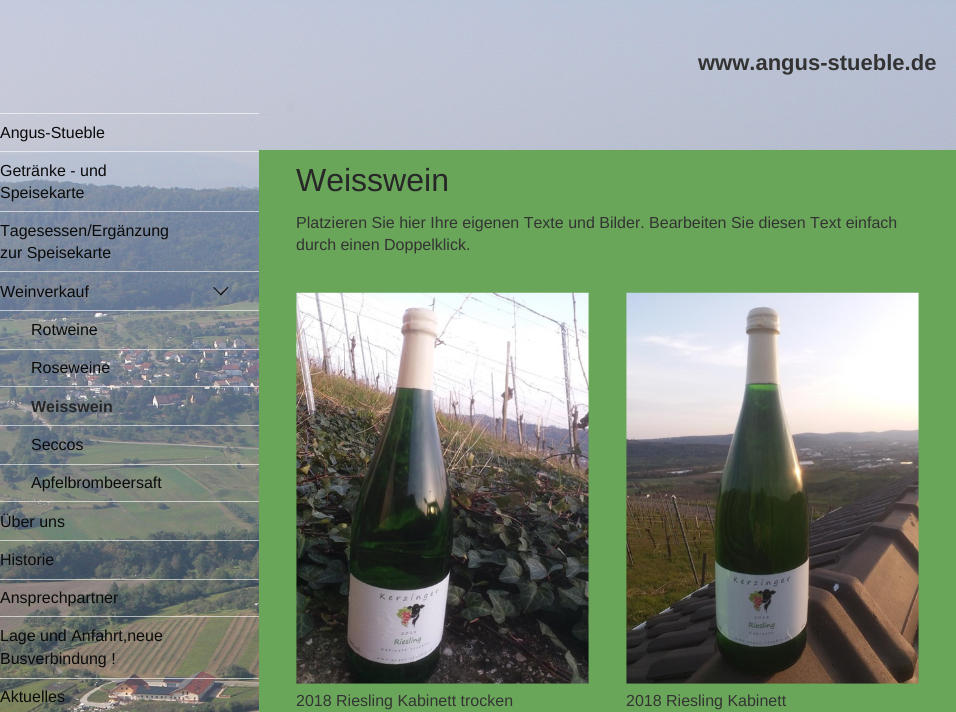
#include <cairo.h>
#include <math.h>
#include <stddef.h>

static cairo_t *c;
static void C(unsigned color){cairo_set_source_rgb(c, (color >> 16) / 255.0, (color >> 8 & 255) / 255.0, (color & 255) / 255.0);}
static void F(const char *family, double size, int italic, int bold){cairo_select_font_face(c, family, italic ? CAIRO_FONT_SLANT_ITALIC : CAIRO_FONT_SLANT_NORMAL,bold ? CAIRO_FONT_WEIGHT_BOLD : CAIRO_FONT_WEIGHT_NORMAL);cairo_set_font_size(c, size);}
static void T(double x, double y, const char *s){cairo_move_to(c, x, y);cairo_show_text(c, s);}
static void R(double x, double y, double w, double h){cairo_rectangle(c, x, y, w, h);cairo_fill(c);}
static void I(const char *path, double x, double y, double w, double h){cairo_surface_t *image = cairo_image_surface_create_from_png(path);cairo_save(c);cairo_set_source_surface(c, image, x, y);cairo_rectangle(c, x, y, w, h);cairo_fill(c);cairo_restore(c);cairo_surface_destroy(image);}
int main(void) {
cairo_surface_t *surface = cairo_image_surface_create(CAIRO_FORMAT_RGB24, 956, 712);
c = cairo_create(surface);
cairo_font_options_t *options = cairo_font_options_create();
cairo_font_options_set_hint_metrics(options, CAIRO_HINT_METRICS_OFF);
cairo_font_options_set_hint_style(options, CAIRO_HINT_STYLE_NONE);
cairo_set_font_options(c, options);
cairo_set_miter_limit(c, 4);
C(0xffffff);
cairo_paint(c);
I("1.png",0,0,956,712);
F("Liberation Sans",22,0,1);
C(0x333333);
T(698,70,"www.angus-stueble.de");
cairo_set_source_rgba(c,1,1,1,0.6);
R(0,113,259,1);
F("Liberation Sans",16,0,0);
C(0x0a0a0a);
T(0,138,"Angus-Stueble");
cairo_set_source_rgba(c,1,1,1,0.6);
R(0,151,259,1);
C(0x0a0a0a);
T(0,176,"Getränke - und");
T(0,198,"Speisekarte");
cairo_set_source_rgba(c,1,1,1,0.6);
R(0,211,259,1);
C(0x0a0a0a);
T(0,236,"Tagesessen/Ergänzung");
T(0,258,"zur Speisekarte");
cairo_set_source_rgba(c,1,1,1,0.6);
R(0,271,259,1);
C(0x0a0a0a);
T(0,297,"Weinverkauf");
cairo_new_path(c);
cairo_move_to(c,228.5,287.5);
cairo_line_to(c,221,295.5);
cairo_line_to(c,220,294.5);
cairo_line_to(c,227.5,287);
cairo_close_path(c);
cairo_fill(c);
cairo_new_path(c);
cairo_move_to(c,221.5,294.5);
cairo_line_to(c,221,295.5);
cairo_line_to(c,213,287.5);
cairo_line_to(c,214,287);
cairo_close_path(c);
cairo_fill(c);
cairo_set_source_rgba(c,1,1,1,0.6);
R(0,310,259,1);
C(0x0a0a0a);
T(31,335,"Rotweine");
cairo_set_source_rgba(c,1,1,1,0.6);
R(0,349,259,1);
C(0x0a0a0a);
T(31,373,"Roseweine");
cairo_set_source_rgba(c,1,1,1,0.6);
R(0,386,259,1);
F("Liberation Sans",16,0,1);
C(0x272727);
T(31,412,"Weisswein");
cairo_set_source_rgba(c,1,1,1,0.6);
R(0,425,259,1);
F("Liberation Sans",16,0,0);
C(0x0a0a0a);
T(31,450,"Seccos");
cairo_set_source_rgba(c,1,1,1,0.6);
R(0,464,259,1);
C(0x0a0a0a);
T(31,488,"Apfelbrombeersaft");
cairo_set_source_rgba(c,1,1,1,0.6);
R(0,501,259,1);
C(0x0a0a0a);
T(0,527,"Über uns");
cairo_set_source_rgba(c,1,1,1,0.6);
R(0,540,259,1);
C(0x0a0a0a);
T(0,565,"Historie");
cairo_set_source_rgba(c,1,1,1,0.6);
R(0,579,259,1);
C(0x0a0a0a);
T(0,603,"Ansprechpartner");
cairo_set_source_rgba(c,1,1,1,0.6);
R(0,616,259,1);
C(0x0a0a0a);
T(0,641,"Lage und Anfahrt,neue");
T(0,664,"Busverbindung !");
cairo_set_source_rgba(c,1,1,1,0.6);
R(0,678,259,1);
C(0x0a0a0a);
T(0,702,"Aktuelles");
C(0x69a659);
R(259,150,697,562);
F("Liberation Sans",32,0,0);
C(0x272727);
T(296,191,"Weisswein");
F("Liberation Sans",16,0,0);
C(0x333333);
T(296,228,"Platzieren Sie hier Ihre eigenen Texte und Bilder. Bearbeiten Sie diesen Text einfach");
T(296,250,"durch einen Doppelklick.");
I("2.png",296,292,293,392);
T(296,706,"2018 Riesling Kabinett trocken");
I("3.png",626,292,293,392);
T(626,706,"2018 Riesling Kabinett");
cairo_surface_write_to_png(surface, "o.png");
cairo_font_options_destroy(options);
cairo_destroy(c);
cairo_surface_destroy(surface);
return 0;
}
